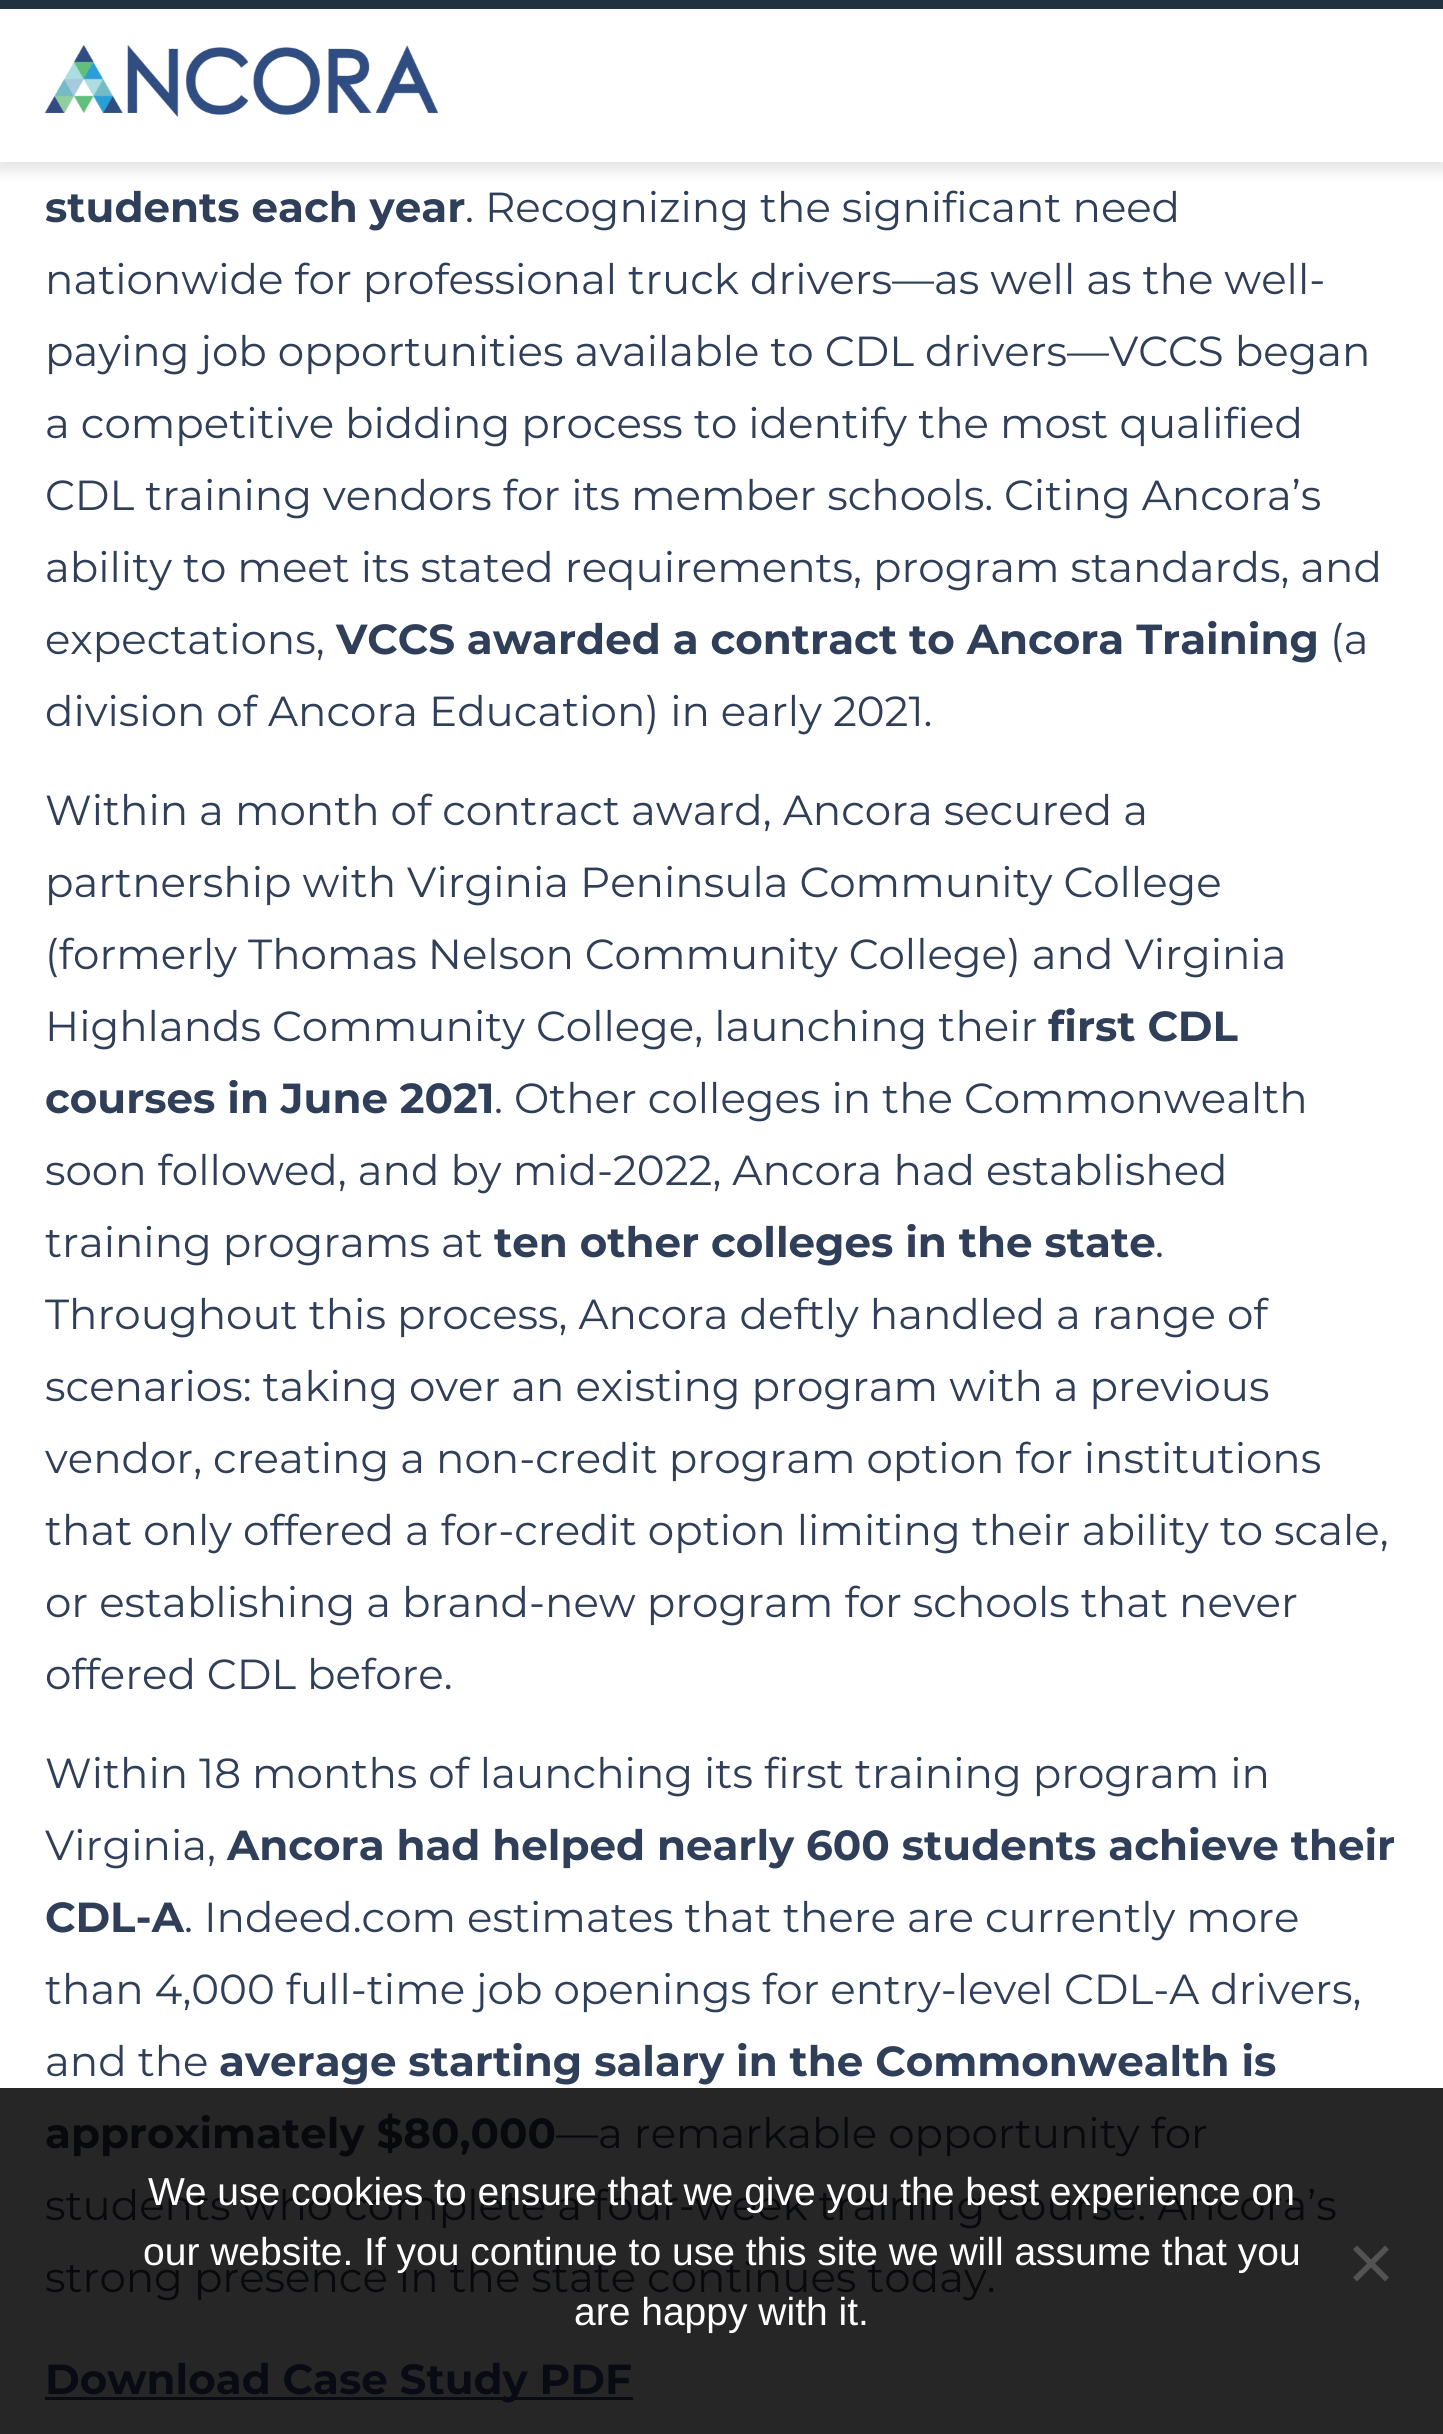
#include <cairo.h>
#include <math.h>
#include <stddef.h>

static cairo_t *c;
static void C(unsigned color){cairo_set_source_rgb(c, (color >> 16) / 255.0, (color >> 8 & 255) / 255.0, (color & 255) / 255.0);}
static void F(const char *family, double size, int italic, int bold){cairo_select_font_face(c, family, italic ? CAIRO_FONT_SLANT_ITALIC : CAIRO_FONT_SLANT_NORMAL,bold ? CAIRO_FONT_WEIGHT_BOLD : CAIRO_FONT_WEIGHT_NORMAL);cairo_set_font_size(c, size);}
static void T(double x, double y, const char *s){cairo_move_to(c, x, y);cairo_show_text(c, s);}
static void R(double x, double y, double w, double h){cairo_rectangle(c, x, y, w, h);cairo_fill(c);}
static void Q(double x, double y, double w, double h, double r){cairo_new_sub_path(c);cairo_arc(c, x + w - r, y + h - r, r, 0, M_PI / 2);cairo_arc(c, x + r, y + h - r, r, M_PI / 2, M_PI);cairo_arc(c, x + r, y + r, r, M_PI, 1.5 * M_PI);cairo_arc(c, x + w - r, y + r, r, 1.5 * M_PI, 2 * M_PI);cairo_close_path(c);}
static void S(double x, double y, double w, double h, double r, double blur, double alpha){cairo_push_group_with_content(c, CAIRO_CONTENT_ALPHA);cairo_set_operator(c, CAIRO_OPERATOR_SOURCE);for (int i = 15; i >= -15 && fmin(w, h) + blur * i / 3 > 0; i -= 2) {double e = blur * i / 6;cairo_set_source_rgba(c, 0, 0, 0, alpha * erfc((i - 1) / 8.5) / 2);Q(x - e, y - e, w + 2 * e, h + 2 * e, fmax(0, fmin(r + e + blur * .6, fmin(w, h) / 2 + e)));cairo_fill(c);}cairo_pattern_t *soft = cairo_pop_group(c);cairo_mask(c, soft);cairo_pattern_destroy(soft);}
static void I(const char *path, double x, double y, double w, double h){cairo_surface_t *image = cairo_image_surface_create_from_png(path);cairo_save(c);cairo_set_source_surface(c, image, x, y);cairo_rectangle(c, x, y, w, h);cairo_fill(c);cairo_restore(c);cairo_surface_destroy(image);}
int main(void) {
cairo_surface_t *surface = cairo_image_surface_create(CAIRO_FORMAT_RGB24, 1443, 2434);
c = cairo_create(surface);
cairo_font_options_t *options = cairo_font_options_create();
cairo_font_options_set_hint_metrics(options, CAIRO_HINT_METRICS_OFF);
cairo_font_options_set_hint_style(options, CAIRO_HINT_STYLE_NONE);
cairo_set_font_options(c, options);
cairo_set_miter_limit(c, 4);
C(0xffffff);
cairo_paint(c);
C(0x262626);
R(0,2088,1443,346);
C(0x000000);
S(-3,3,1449,168,0,6,.1);
C(0xffffff);
R(0,9,1443,153);
C(0x203141);
R(0,0,1443,9);
I("1.png",45,45,393,73);
F("Montserrat",42,0,1);
C(0x303f59);
T(45,222,"students each year");
F("Montserrat",42,0,0);
T(465,222,". Recognizing the significant need");
T(45,294,"nationwide for professional truck drivers—as well as the well-");
T(45,366,"paying job opportunities available to CDL drivers—VCCS began");
T(45,438,"a competitive bidding process to identify the most qualified");
T(45,510,"CDL training vendors for its member schools. Citing Ancora’s");
T(45,582,"ability to meet its stated requirements, program standards, and");
T(45,654,"expectations,");
F("Montserrat",42,0,1);
T(336,654,"VCCS awarded a contract to Ancora Training");
F("Montserrat",42,0,0);
T(1330,654,"(a");
T(45,726,"division of Ancora Education) in early 2021.");
T(45,825,"Within a month of contract award, Ancora secured a");
T(45,897,"partnership with Virginia Peninsula Community College");
T(45,969,"(formerly Thomas Nelson Community College) and Virginia");
T(45,1041,"Highlands Community College, launching their");
F("Montserrat",42,0,1);
T(1048,1041,"first CDL");
T(45,1113,"courses in June 2021");
F("Montserrat",42,0,0);
T(494,1113,". Other colleges in the Commonwealth");
T(45,1185,"soon followed, and by mid-2022, Ancora had established");
T(45,1257,"training programs at");
F("Montserrat",42,0,1);
T(494,1257,"ten other colleges in the state");
F("Montserrat",42,0,0);
T(1155,1257,".");
T(45,1329,"Throughout this process, Ancora deftly handled a range of");
T(45,1401,"scenarios: taking over an existing program with a previous");
T(45,1473,"vendor, creating a non-credit program option for institutions");
T(45,1545,"that only offered a for-credit option limiting their ability to scale,");
T(45,1617,"or establishing a brand-new program for schools that never");
T(45,1689,"offered CDL before.");
T(45,1788,"Within 18 months of launching its first training program in");
T(45,1860,"Virginia,");
F("Montserrat",42,0,1);
T(227,1860,"Ancora had helped nearly 600 students achieve their");
T(45,1932,"CDL-A");
F("Montserrat",42,0,0);
T(184,1932,". Indeed.com estimates that there are currently more");
T(45,2004,"than 4,000 full-time job openings for entry-level CDL-A drivers,");
T(45,2076,"and the");
F("Montserrat",42,0,1);
T(219,2076,"average starting salary in the Commonwealth is");
C(0x07090d);
T(45,2148,"approximately $80,000");
F("Montserrat",42,0,0);
T(556,2148,"—a remarkable opportunity for");
T(45,2220,"students who complete a four-week training course. Ancora’s");
T(45,2292,"strong presence in the state continues today.");
C(0x080b14);
R(45,2397,588,3);
F("Montserrat",42,0,1);
T(45,2394,"Download Case Study PDF");
F("Liberation Sans",39,0,0);
C(0xffffff);
T(148,2205,"We use cookies to ensure that we give you the best experience on");
T(143,2265,"our website. If you continue to use this site we will assume that you");
T(574,2325,"are happy with it.");
C(0x535353);
cairo_new_path(c);
cairo_move_to(c,1385,2245.5);
cairo_line_to(c,1389,2249.5);
cairo_line_to(c,1357,2281.5);
cairo_line_to(c,1353,2277.5);
cairo_close_path(c);
cairo_fill(c);
cairo_new_path(c);
cairo_move_to(c,1353,2249.5);
cairo_line_to(c,1357,2245.5);
cairo_line_to(c,1389,2277.5);
cairo_line_to(c,1385,2281.5);
cairo_close_path(c);
cairo_fill(c);
cairo_surface_write_to_png(surface, "o.png");
cairo_font_options_destroy(options);
cairo_destroy(c);
cairo_surface_destroy(surface);
return 0;
}
